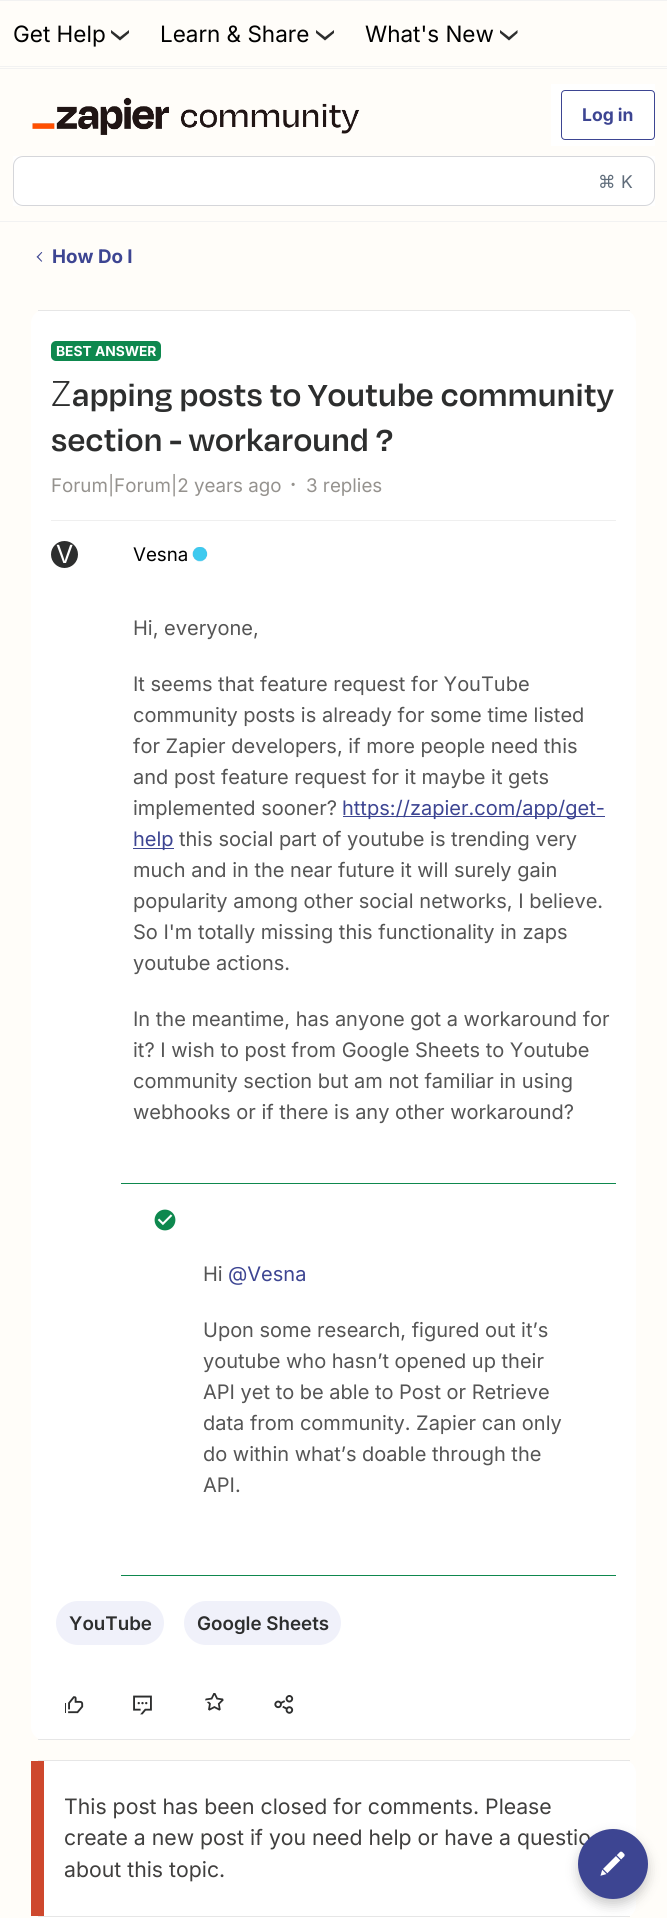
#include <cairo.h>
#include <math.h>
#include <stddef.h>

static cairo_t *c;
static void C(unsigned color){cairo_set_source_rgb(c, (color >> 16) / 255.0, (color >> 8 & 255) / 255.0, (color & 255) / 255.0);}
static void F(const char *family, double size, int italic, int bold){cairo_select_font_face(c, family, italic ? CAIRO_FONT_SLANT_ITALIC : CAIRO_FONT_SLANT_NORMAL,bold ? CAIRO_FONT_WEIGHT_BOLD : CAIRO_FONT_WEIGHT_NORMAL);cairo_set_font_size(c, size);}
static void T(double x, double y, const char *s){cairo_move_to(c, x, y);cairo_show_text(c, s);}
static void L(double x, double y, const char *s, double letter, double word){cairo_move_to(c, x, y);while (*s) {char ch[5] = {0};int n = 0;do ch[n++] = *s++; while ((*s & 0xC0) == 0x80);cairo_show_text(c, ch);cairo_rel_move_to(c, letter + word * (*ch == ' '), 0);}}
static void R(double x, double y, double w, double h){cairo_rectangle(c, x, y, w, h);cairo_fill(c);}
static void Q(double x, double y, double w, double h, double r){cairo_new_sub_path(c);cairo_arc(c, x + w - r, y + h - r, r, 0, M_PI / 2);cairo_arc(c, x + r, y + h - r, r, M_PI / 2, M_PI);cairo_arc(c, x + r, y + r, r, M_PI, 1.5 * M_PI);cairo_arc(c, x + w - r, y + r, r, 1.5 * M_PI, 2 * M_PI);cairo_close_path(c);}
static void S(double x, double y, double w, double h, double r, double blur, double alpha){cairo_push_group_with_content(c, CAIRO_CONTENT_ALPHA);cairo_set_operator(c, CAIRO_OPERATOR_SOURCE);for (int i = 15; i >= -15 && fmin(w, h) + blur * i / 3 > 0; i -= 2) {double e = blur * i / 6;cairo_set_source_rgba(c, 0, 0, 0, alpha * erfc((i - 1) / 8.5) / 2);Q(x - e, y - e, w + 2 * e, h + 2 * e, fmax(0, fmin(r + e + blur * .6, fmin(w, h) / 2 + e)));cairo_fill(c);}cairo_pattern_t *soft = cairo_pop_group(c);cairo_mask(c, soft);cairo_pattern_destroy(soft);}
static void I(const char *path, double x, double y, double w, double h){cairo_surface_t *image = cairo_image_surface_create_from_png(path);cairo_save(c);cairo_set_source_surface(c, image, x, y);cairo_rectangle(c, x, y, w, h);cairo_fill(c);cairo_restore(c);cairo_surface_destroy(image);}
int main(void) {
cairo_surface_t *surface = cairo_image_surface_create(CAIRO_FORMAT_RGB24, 667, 1918);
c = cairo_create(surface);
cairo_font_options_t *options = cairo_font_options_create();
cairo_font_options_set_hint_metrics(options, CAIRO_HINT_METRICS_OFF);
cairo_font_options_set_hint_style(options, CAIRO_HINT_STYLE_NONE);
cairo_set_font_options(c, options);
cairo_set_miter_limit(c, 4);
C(0xfffdf9);
cairo_paint(c);
C(0xf2f2f2);
R(0,0,667,1);
R(0,66,667,1);
F("Inter",22.5,0,0);
C(0x000000);
T(13,42,"Get Help");
C(0x2d2e2e);
cairo_new_path(c);
cairo_move_to(c,129,30);
cairo_line_to(c,129,33);
cairo_line_to(c,120,40.5);
cairo_line_to(c,111,33);
cairo_line_to(c,111,30);
cairo_line_to(c,120,37);
cairo_close_path(c);
cairo_fill(c);
C(0x000000);
T(160,42,"Learn & Share");
C(0x2d2e2e);
cairo_new_path(c);
cairo_move_to(c,334,30);
cairo_line_to(c,334,33);
cairo_line_to(c,325,40.5);
cairo_line_to(c,316,33);
cairo_line_to(c,316,30);
cairo_line_to(c,325,37);
cairo_close_path(c);
cairo_fill(c);
C(0x000000);
T(365,42,"What's New");
C(0x2d2e2e);
cairo_new_path(c);
cairo_move_to(c,517.5,30);
cairo_line_to(c,517.5,33);
cairo_line_to(c,509,40.5);
cairo_line_to(c,500,33);
cairo_line_to(c,500,30);
cairo_line_to(c,509,37);
cairo_close_path(c);
cairo_fill(c);
C(0xf2f2f2);
R(0,68,667,1);
R(0,221,667,1);
I("1.png",32,97,328,38);
C(0xffffff);
R(551,84,104,62);
Q(561.5,90.5,93,49,3.5);
C(0x3d4592);
cairo_set_line_width(c,1);
cairo_stroke(c);
F("Inter",17.5,0,1);
T(582,121,"Log in");
C(0xffffff);
R(13,156,642,50);
Q(13.5,156.5,641,49,9.5);
C(0xd5d6da);
cairo_stroke(c);
F("DejaVu Sans",17.5,0,0);
C(0x5f6c7a);
T(598,188,"⌘");
F("Inter",17.5,0,0);
T(621,188,"K");
I("2.png",36,252,7,10);
F("Inter",18.75,0,1);
C(0x3d4592);
T(52,263,"How Do I");
C(0xffffff);
Q(31,310,605,1430,13);
cairo_fill(c);
C(0xe6e6e6);
R(38,310,592,1);
R(38,1739,592,1);
C(0x0e884e);
Q(51,341,110,20,5);
cairo_fill(c);
F("Inter",13.75,0,1);
C(0xffffff);
T(56,356,"BEST ANSWER");
F("Noto Sans Light",35,0,0);
C(0x2d2e2e);
L(51,406,"Z",.25,0);
F("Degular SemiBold",35,0,0);
L(72,406,"apping posts to Youtube community",.25,0);
L(51,451,"section - workaround ?",.25,0);
F("Inter",18.75,0,0);
C(0x95928e);
T(51,492,"Forum|Forum|2 years ago");
I("3.png",291,482,4,4);
T(306,492,"3 replies");
C(0xefefef);
R(51,520,565,1);
C(0x2d2e2e);
cairo_new_path(c);
cairo_arc(c,64.5,554.5,13.5,0,2 * M_PI);
cairo_fill(c);
F("Inter",25,0,0);
C(0xffffff);
T(56,563,"V");
F("Inter",18.75,0,0);
C(0x000000);
T(133,561,"Vesna");
I("4.png",192,547,16,15);
F("Inter",20,0,0);
C(0x555555);
T(133,635,"Hi, everyone,");
T(133,691,"It seems that feature request for YouTube");
T(133,722,"community posts is already for some time listed");
T(133,753,"for Zapier developers, if more people need this");
T(133,784,"and post feature request for it maybe it gets");
T(133,815,"implemented sooner?");
C(0x3d4592);
R(343,816,262,1);
T(342,815,"https://zapier.com/app/get-");
R(133,848,41,1);
T(133,846,"help");
C(0x555555);
T(179,846,"this social part of youtube is trending very");
T(133,877,"much and in the near future it will surely gain");
T(133,908,"popularity among other social networks, I believe.");
T(133,939,"So I'm totally missing this functionality in zaps");
T(133,970,"youtube actions.");
T(133,1026,"In the meantime, has anyone got a workaround for");
T(133,1057,"it? I wish to post from Google Sheets to Youtube");
T(133,1088,"community section but am not familiar in using");
T(133,1119,"webhooks or if there is any other workaround?");
C(0x0e884e);
R(121,1183,495,1);
R(121,1575,495,1);
I("5.png",154,1209,22,22);
C(0x555555);
T(203,1281,"Hi");
C(0x3d4592);
T(228,1281,"@Vesna");
C(0x555555);
T(203,1337,"Upon some research, figured out it’s");
T(203,1368,"youtube who hasn’t opened up their");
T(203,1399,"API yet to be able to Post or Retrieve");
T(203,1430,"data from community. Zapier can only");
T(203,1461,"do within what’s doable through the");
T(203,1492,"API.");
C(0xf0f1fa);
Q(56,1601,108,44,22);
cairo_fill(c);
F("Inter SemiBold",18.75,0,0);
C(0x2d2e2e);
T(69,1630,"YouTube");
C(0xf0f1fa);
Q(184,1601,157,44,22);
cairo_fill(c);
C(0x2d2e2e);
T(197,1630,"Google Sheets");
I("6.png",65,1696,19,18);
I("7.png",133,1695,19,20);
I("8.png",205,1693,19,18);
I("9.png",274,1695,20,19);
C(0xffffff);
Q(31,1760,605,158,13);
cairo_fill(c);
C(0xe6e6e6);
R(38,1760,592,1);
R(38,1916,592,1);
C(0xce482d);
R(31,1761,13,155);
F("Inter",21.25,0,0);
C(0x403f3e);
T(64,1814,"This post has been closed for comments. Please");
T(64,1845,"create a new post if you need help or have a questio");
T(64,1877,"about this topic.");
C(0x000000);
S(578,1835,70,70,35,6,.2);
C(0x3d4592);
cairo_arc(c,613,1864,35,0,2 * M_PI);
cairo_fill(c);
I("10.png",600,1851,25,25);
cairo_surface_write_to_png(surface, "o.png");
cairo_font_options_destroy(options);
cairo_destroy(c);
cairo_surface_destroy(surface);
return 0;
}
